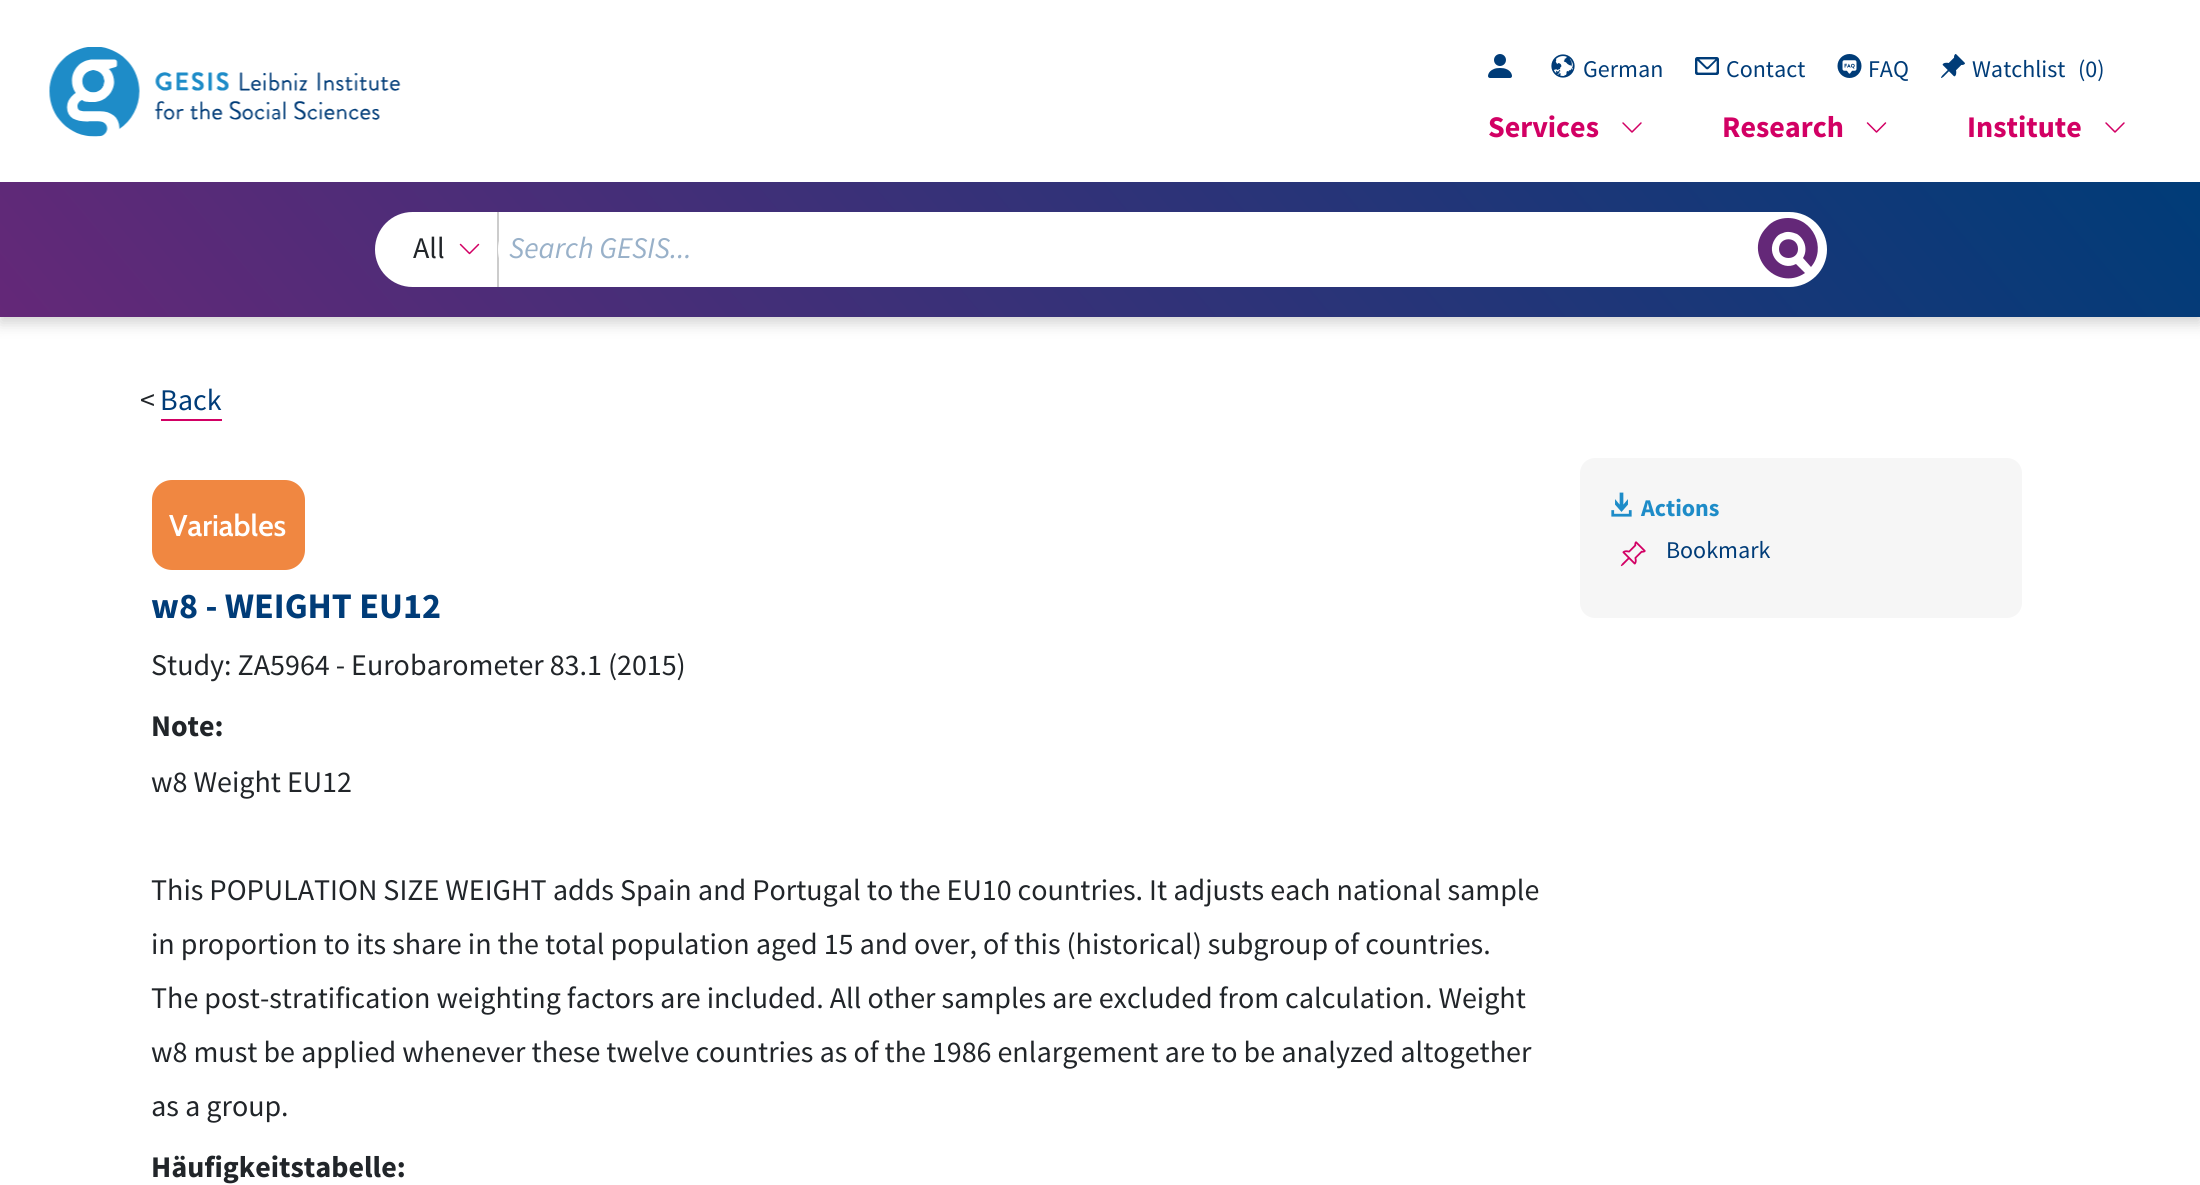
#include <cairo.h>
#include <math.h>
#include <stddef.h>

static cairo_t *c;
static void C(unsigned color){cairo_set_source_rgb(c, (color >> 16) / 255.0, (color >> 8 & 255) / 255.0, (color & 255) / 255.0);}
static void F(const char *family, double size, int italic, int bold){cairo_select_font_face(c, family, italic ? CAIRO_FONT_SLANT_ITALIC : CAIRO_FONT_SLANT_NORMAL,bold ? CAIRO_FONT_WEIGHT_BOLD : CAIRO_FONT_WEIGHT_NORMAL);cairo_set_font_size(c, size);}
static void T(double x, double y, const char *s){cairo_move_to(c, x, y);cairo_show_text(c, s);}
static void R(double x, double y, double w, double h){cairo_rectangle(c, x, y, w, h);cairo_fill(c);}
static void Q(double x, double y, double w, double h, double r){cairo_new_sub_path(c);cairo_arc(c, x + w - r, y + h - r, r, 0, M_PI / 2);cairo_arc(c, x + r, y + h - r, r, M_PI / 2, M_PI);cairo_arc(c, x + r, y + r, r, M_PI, 1.5 * M_PI);cairo_arc(c, x + w - r, y + r, r, 1.5 * M_PI, 2 * M_PI);cairo_close_path(c);}
static void S(double x, double y, double w, double h, double r, double blur, double alpha){cairo_push_group_with_content(c, CAIRO_CONTENT_ALPHA);cairo_set_operator(c, CAIRO_OPERATOR_SOURCE);for (int i = 15; i >= -15 && fmin(w, h) + blur * i / 3 > 0; i -= 2) {double e = blur * i / 6;cairo_set_source_rgba(c, 0, 0, 0, alpha * erfc((i - 1) / 8.5) / 2);Q(x - e, y - e, w + 2 * e, h + 2 * e, fmax(0, fmin(r + e + blur * .6, fmin(w, h) / 2 + e)));cairo_fill(c);}cairo_pattern_t *soft = cairo_pop_group(c);cairo_mask(c, soft);cairo_pattern_destroy(soft);}
static void I(const char *path, double x, double y, double w, double h){cairo_surface_t *image = cairo_image_surface_create_from_png(path);cairo_save(c);cairo_set_source_surface(c, image, x, y);cairo_rectangle(c, x, y, w, h);cairo_fill(c);cairo_restore(c);cairo_surface_destroy(image);}
int main(void) {
cairo_surface_t *surface = cairo_image_surface_create(CAIRO_FORMAT_RGB24, 2200, 1185);
c = cairo_create(surface);
cairo_font_options_t *options = cairo_font_options_create();
cairo_font_options_set_hint_metrics(options, CAIRO_HINT_METRICS_OFF);
cairo_font_options_set_hint_style(options, CAIRO_HINT_STYLE_NONE);
cairo_set_font_options(c, options);
cairo_set_miter_limit(c, 4);
cairo_pattern_t *gradient;
C(0xffffff);
cairo_paint(c);
C(0x000000);
S(0,6,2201,317,0,7.5,.18);
C(0xffffff);
R(0,0,2200,182);
I("1.png",49,47,352,90);
I("2.png",1488,54,24,24);
I("3.png",1551,54,24,24);
F("Source Sans Pro",24,0,0);
C(0x003c78);
T(1583,77,"German");
I("4.png",1695,57,24,18);
T(1726,77,"Contact");
I("5.png",1837,54,25,24);
T(1868,77,"FAQ");
I("6.png",1941,54,24,24);
T(1972,77,"Watchlist");
T(2078,77,"(0)");
F("Source Sans Pro",30,0,1);
C(0xd20064);
T(1488,137,"Services");
I("7.png",1622,122,20,11);
T(1722,137,"Research");
I("8.png",1866,122,21,11);
T(1967,137,"Institute");
I("7.png",2105,122,20,11);
gradient = cairo_pattern_create_linear(421,819,1779,-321);
cairo_pattern_add_color_stop_rgba(gradient,0,0.392,0.157,0.471,1);
cairo_pattern_add_color_stop_rgba(gradient,1,0,0.235,0.471,1);
cairo_set_source(c,gradient);
cairo_pattern_destroy(gradient);
R(0,182,2200,135);
C(0xffffff);
Q(375,212,1452,75,37.5);
cairo_fill(c);
I("9.png",459,243,21,12);
C(0xcccccc);
R(497,212,2,75);
F("Source Sans Pro",30,0,0);
C(0x212529);
T(413,258,"All");
C(0xffffff);
Q(498,212,1251,75,37.5);
cairo_fill(c);
F("Source Sans Pro",30,1,0);
C(0x99b1c9);
T(509,258,"Search GESIS...");
C(0x642878);
cairo_new_path(c);
cairo_move_to(c,1798,249);
cairo_curve_to(c,1798,261,1779,261,1779,249);
cairo_curve_to(c,1779,236,1798,236,1798,249);
cairo_close_path(c);
cairo_move_to(c,1788,218);
cairo_curve_to(c,1780,218,1772,221,1767,227);
cairo_curve_to(c,1741,253,1776,293,1805,273);
cairo_line_to(c,1796,264);
cairo_curve_to(c,1781,272,1765,254,1775,239);
cairo_curve_to(c,1777,236,1779,234,1783,233);
cairo_curve_to(c,1787,231,1792,232,1797,234);
cairo_curve_to(c,1805,239,1808,250,1803,258);
cairo_line_to(c,1811,267);
cairo_curve_to(c,1827,248,1813,218,1788,218);
cairo_close_path(c);
cairo_move_to(c,1811,267);
cairo_line_to(c,1803,258);
cairo_close_path(c);
cairo_fill(c);
F("Source Sans Pro",30,0,0);
C(0x212529);
T(140,410,"<");
C(0x003c78);
T(160,410,"Back");
C(0xd20064);
R(161,419,61,2);
C(0xf08741);
Q(153.5,481.5,150,87,18.5);
cairo_fill_preserve(c);
cairo_set_line_width(c,3);
cairo_stroke(c);
F("Cabin SemiBold",30,0,0);
C(0xffffff);
T(169,536,"Variables");
F("Source Sans Pro",36,0,1);
C(0x003c78);
T(151,618,"w8 - WEIGHT EU12");
F("Source Sans Pro",30,0,0);
C(0x212529);
T(151,675,"Study: ZA5964 - Eurobarometer 83.1 (2015)");
F("Source Sans Pro",30,0,1);
T(151,736,"Note:");
F("Source Sans Pro",30,0,0);
T(151,792,"w8 Weight EU12");
T(151,900,"This POPULATION SIZE WEIGHT adds Spain and Portugal to the EU10 countries. It adjusts each national sample");
T(151,954,"in proportion to its share in the total population aged 15 and over, of this (historical) subgroup of countries.");
T(151,1008,"The post-stratification weighting factors are included. All other samples are excluded from calculation. Weight");
T(151,1062,"w8 must be applied whenever these twelve countries as of the 1986 enlargement are to be analyzed altogether");
T(151,1116,"as a group.");
F("Source Sans Pro",30,0,1);
T(151,1177,"Häufigkeitstabelle:");
C(0xf6f6f6);
Q(1580,458,442,160,15);
cairo_fill(c);
I("10.png",1611,492,21,25);
F("Source Sans Pro",24,0,1);
C(0x1e8cc8);
T(1641,516,"Actions");
I("11.png",1620,541,26,26);
F("Source Sans Pro",24,0,0);
C(0x003c78);
T(1666,558,"Bookmark");
cairo_surface_write_to_png(surface, "o.png");
cairo_font_options_destroy(options);
cairo_destroy(c);
cairo_surface_destroy(surface);
return 0;
}
